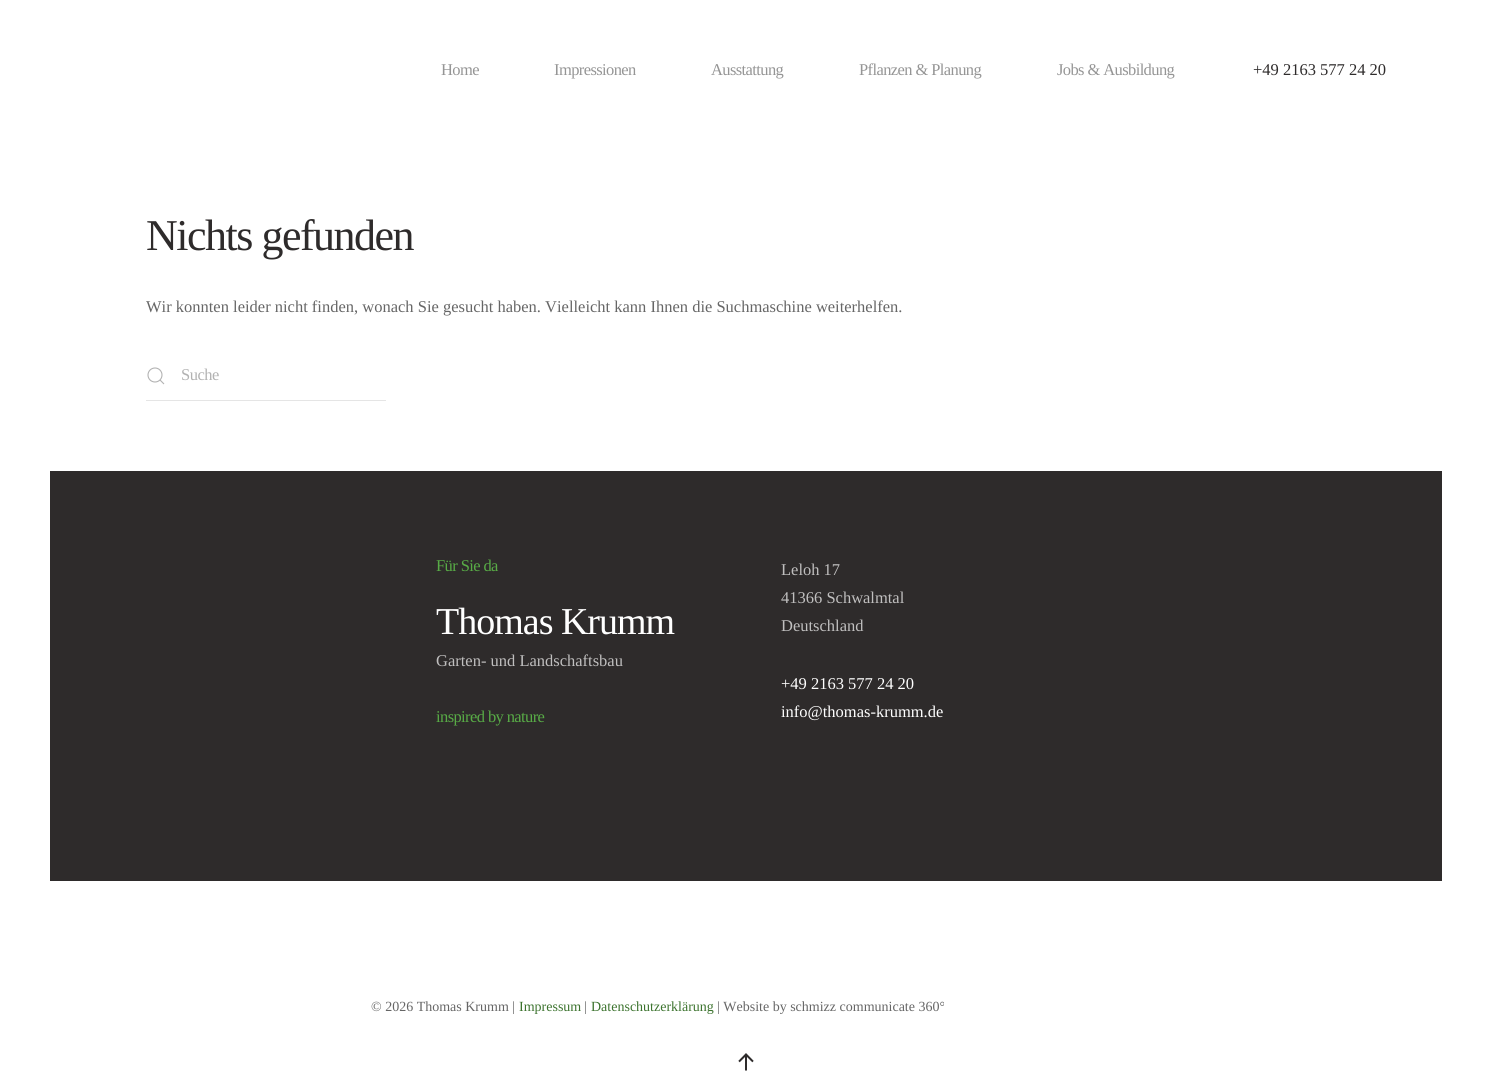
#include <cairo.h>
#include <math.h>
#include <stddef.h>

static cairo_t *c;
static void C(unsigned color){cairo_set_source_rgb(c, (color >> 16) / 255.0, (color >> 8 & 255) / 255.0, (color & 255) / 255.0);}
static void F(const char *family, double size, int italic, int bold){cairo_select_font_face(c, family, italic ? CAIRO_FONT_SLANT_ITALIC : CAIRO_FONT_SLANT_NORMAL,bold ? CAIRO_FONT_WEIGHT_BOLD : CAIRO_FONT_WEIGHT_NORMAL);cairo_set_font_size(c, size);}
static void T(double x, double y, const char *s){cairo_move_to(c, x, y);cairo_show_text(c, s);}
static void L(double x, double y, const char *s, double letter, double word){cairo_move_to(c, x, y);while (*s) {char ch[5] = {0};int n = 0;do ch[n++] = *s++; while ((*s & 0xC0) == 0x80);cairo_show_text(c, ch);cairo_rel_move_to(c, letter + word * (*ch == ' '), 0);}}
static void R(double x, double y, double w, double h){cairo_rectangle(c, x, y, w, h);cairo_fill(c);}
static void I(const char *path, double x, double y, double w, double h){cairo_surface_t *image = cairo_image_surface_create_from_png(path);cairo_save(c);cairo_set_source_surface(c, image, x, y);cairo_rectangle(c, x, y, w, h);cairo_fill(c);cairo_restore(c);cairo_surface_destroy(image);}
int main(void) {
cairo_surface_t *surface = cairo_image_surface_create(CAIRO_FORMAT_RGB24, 1492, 1074);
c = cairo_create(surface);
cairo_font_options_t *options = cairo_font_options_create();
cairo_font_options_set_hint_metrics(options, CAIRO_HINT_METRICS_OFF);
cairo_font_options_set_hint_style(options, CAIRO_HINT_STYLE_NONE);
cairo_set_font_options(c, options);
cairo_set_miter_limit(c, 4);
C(0xffffff);
cairo_paint(c);
F("Liberation Serif",16.5,0,0);
C(0x959595);
L(441,75,"Home",-.6,0);
L(554,75,"Impressionen",-.6,0);
L(711,75,"Ausstattung",-.6,0);
L(859,75,"Pflanzen & Planung",-.6,0);
L(1057,75,"Jobs & Ausbildung",-.6,0);
C(0x2e2b2b);
T(1253,75,"+49 2163 577 24 20");
F("Liberation Serif",44,0,0);
L(146,250,"Nichts gefunden",-1.5,0);
F("Liberation Serif",16.5,0,0);
C(0x666666);
T(146,312,"Wir konnten leider nicht finden, wonach Sie gesucht haben. Vielleicht kann Ihnen die Suchmaschine weiterhelfen.");
cairo_new_path(c);
cairo_arc(c,155,375,7,0,2 * M_PI);
C(0xb2b2b2);
cairo_set_line_width(c,1.1);
cairo_stroke(c);
cairo_new_path(c);
cairo_move_to(c,160,380);
cairo_line_to(c,164,384);
cairo_close_path(c);
cairo_stroke(c);
C(0xe5e5e5);
R(146,400,240,1);
C(0xb2b2b2);
L(181,380,"Suche",-.5,0);
C(0x2e2b2b);
R(50,471,1392,410);
C(0x58ac46);
L(436,571,"Für Sie da",-.6,0);
F("Liberation Serif",38,0,0);
C(0xffffff);
L(436,634,"Thomas Krumm",-1,0);
F("Liberation Serif",16.5,0,0);
C(0xc0bfbf);
T(436,666,"Garten- und Landschaftsbau");
C(0x58ac46);
L(436,722,"inspired by nature",-.6,0);
C(0xc0bfbf);
T(781,575,"Leloh 17");
T(781,603,"41366 Schwalmtal");
T(781,631,"Deutschland");
C(0xffffff);
T(781,689,"+49 2163 577 24 20");
T(781,717,"info@thomas-krumm.de");
F("Liberation Serif",14,0,0);
C(0x666666);
T(371,1011,"© 2026 Thomas Krumm |");
C(0x3c732e);
T(519,1011,"Impressum");
C(0x666666);
T(584,1011,"|");
C(0x3c732e);
T(591,1011,"Datenschutzerklärung");
C(0x666666);
T(717,1011,"| Website by schmizz communicate 360°");
I("1.png",738,1053,16,18);
cairo_surface_write_to_png(surface, "o.png");
cairo_font_options_destroy(options);
cairo_destroy(c);
cairo_surface_destroy(surface);
return 0;
}
